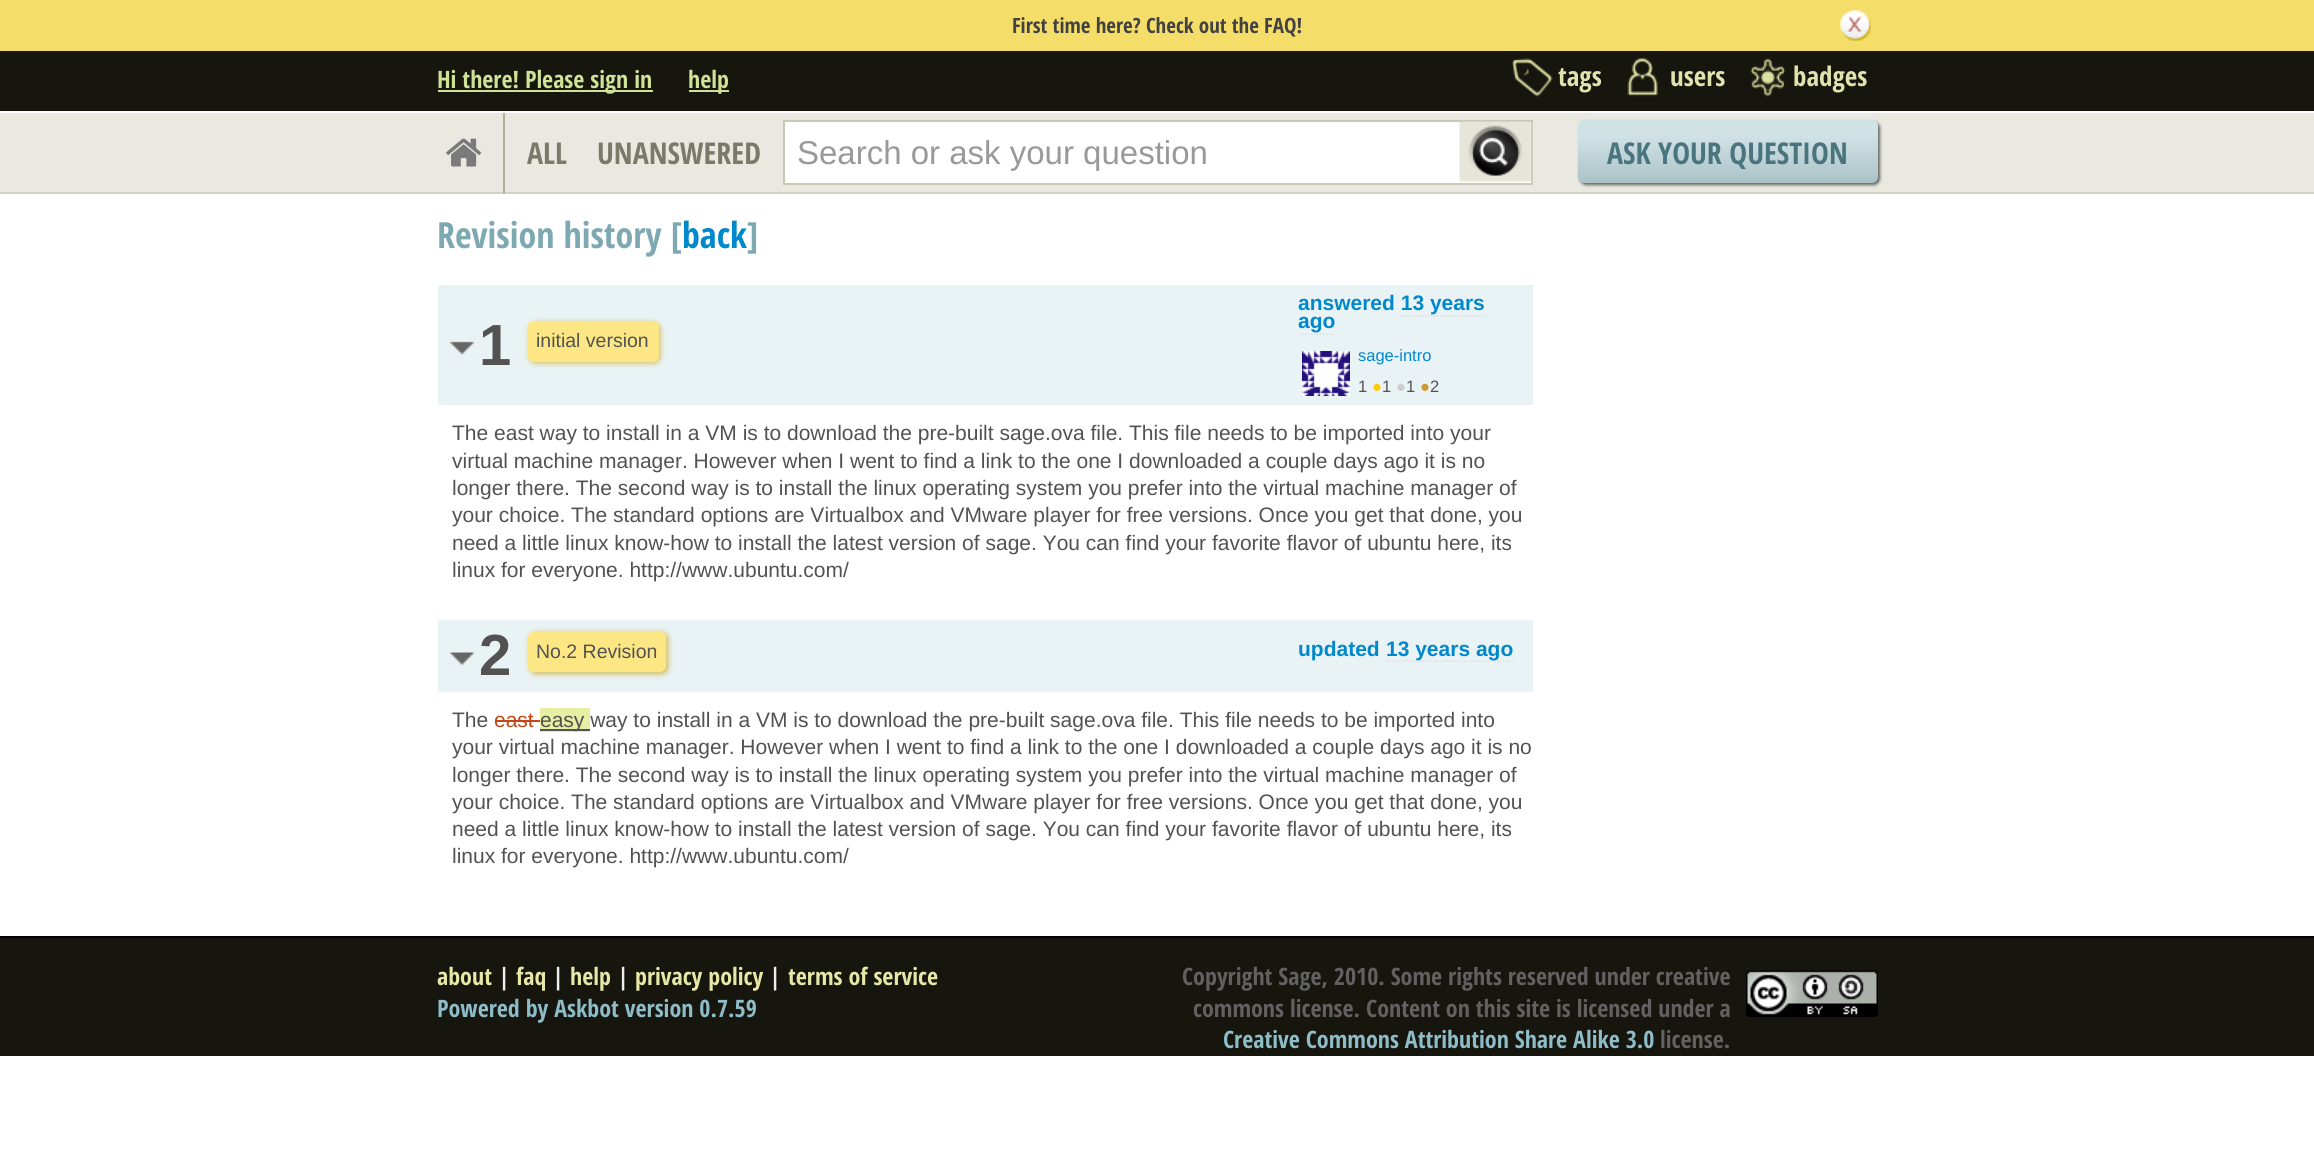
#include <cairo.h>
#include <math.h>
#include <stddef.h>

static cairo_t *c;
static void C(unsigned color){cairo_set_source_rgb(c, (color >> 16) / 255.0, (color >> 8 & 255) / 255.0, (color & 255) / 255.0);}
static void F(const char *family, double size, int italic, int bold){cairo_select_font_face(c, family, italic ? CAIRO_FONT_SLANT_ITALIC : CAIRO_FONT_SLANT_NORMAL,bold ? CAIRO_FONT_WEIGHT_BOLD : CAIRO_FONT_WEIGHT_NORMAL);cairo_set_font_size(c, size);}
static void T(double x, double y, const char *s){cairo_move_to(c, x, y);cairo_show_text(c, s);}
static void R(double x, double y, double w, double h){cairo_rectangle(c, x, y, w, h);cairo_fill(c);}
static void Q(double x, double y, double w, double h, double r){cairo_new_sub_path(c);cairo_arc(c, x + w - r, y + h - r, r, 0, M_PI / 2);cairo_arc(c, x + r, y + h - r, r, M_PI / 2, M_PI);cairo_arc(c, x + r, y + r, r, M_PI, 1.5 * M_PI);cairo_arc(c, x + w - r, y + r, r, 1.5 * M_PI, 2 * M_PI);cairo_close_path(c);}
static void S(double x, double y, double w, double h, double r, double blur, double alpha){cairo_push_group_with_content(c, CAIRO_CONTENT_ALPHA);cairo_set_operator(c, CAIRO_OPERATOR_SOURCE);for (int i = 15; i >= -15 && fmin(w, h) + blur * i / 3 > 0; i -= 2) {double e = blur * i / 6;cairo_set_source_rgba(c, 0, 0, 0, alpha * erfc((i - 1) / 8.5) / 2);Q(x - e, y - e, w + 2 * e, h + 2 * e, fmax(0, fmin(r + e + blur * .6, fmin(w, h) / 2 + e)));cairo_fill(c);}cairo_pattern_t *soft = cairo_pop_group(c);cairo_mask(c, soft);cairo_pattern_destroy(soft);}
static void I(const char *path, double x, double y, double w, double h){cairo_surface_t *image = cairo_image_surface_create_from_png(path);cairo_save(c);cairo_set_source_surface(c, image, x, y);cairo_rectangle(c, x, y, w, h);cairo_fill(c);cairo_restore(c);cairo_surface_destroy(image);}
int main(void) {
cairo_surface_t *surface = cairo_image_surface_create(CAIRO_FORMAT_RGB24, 2314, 1175);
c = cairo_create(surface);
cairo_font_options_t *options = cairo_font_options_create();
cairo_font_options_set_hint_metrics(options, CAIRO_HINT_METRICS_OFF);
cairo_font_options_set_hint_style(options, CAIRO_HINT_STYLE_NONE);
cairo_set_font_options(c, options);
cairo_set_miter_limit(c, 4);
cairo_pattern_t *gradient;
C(0xffffff);
cairo_paint(c);
C(0xf5dd69);
R(0,0,2314,51);
F("Open Sans Condensed",21,0,1);
C(0x424242);
T(1012,33,"First time here? Check out the FAQ!");
I("1.png",1840,10,31,31);
C(0x16160f);
R(0,51,2314,60);
C(0xd0e296);
R(438,90,215,2);
F("Open Sans Condensed",24,0,1);
T(437,88,"Hi there! Please sign in");
R(689,90,40,2);
T(688,88,"help");
I("2.png",1511,58,42,39);
F("Open Sans Condensed",27,0,1);
C(0xe2e2ae);
T(1558,86,"tags");
I("3.png",1627,58,31,39);
T(1670,86,"users");
I("4.png",1750,58,36,39);
T(1793,86,"badges");
C(0xe9e9e1);
R(0,113,2314,79);
C(0xfcfcfc);
R(0,111,2314,2);
C(0xd3d3c2);
R(0,192,2314,2);
C(0xafaf9e);
R(503,113,2,81);
I("5.png",446,138,36,29);
F("Open Sans Condensed",30,0,1);
C(0x7a7a6b);
T(527,164,"ALL");
T(597,164,"UNANSWERED");
C(0xffffff);
cairo_rectangle(c,784,121,748,63);
cairo_fill_preserve(c);
C(0xc9c9b5);
cairo_stroke(c);
F("Liberation Sans",33,0,0);
C(0x999999);
T(797,164,"Search or ask your question");
I("6.png",1459,121,73,61);
C(0x636363);
S(1580,122,300,63,6,1.5,1);
gradient = cairo_pattern_create_linear(1728,120,1728,183);
cairo_pattern_add_color_stop_rgba(gradient,0,0.82,0.886,0.898,1);
cairo_pattern_add_color_stop_rgba(gradient,.25,0.82,0.886,0.898,1);
cairo_pattern_add_color_stop_rgba(gradient,1,0.663,0.761,0.78,1);
cairo_set_source(c,gradient);
cairo_pattern_destroy(gradient);
Q(1578,120,300,63,6);
cairo_fill(c);
F("Open Sans Condensed",30,0,1);
C(0x4a757f);
T(1607,164,"ASK YOUR QUESTION");
F("Open Sans Condensed",36,0,1);
C(0x7ea9b3);
T(437,248,"Revision history [");
C(0x0088cc);
T(682,248,"back");
C(0x7ea9b3);
T(747,248,"]");
C(0xe9f3f5);
R(438,285,1095,120);
I("7.png",449,341,26,14);
F("Liberation Sans",58,0,1);
C(0x525252);
T(479,365,"1");
C(0xcfb852);
S(530,323,130,40,6,3,1);
C(0xfde785);
Q(528,321,131,41,6);
cairo_fill(c);
F("Liberation Sans",19.5,0,0);
C(0x525252);
T(536,347,"initial version");
F("Liberation Sans",21,0,1);
C(0x0088cc);
T(1298,310,"answered 13 years");
cairo_new_path(c);
cairo_move_to(c,1401,316);
cairo_line_to(c,1485,316);
C(0xdddddd);
cairo_set_line_width(c,1.5);
cairo_set_dash(c,(double[]){1.5,1.5},2,0);
cairo_stroke(c);
C(0x0088cc);
T(1298,328,"ago");
cairo_new_path(c);
cairo_move_to(c,1299,334);
cairo_line_to(c,1335,334);
C(0xdddddd);
cairo_stroke(c);
I("8.png",1302,351,48,45);
F("Liberation Sans",16.5,0,0);
C(0x0088cc);
T(1358,361,"sage-intro");
C(0x525252);
T(1358,392,"1");
C(0xffcc00);
T(1372,392,"●");
C(0x525252);
T(1382,392,"1");
C(0xcccccc);
T(1396,392,"●");
C(0x525252);
T(1406,392,"1");
C(0xcc9933);
T(1420,392,"●");
C(0x525252);
T(1430,392,"2");
F("Liberation Sans",21,0,0);
T(452,440,"The east way to install in a VM is to download the pre-built sage.ova file. This file needs to be imported into your");
T(452,468,"virtual machine manager. However when I went to find a link to the one I downloaded a couple days ago it is no");
T(452,495,"longer there. The second way is to install the linux operating system you prefer into the virtual machine manager of");
T(452,522,"your choice. The standard options are Virtualbox and VMware player for free versions. Once you get that done, you");
T(452,550,"need a little linux know-how to install the latest version of sage. You can find your favorite flavor of ubuntu here, its");
T(452,577,"linux for everyone. http://www.ubuntu.com/");
C(0xe9f3f5);
R(438,620,1095,72);
I("9.png",449,652,26,13);
F("Liberation Sans",58,0,1);
C(0x525252);
T(479,675,"2");
C(0xcfb852);
S(530,633,138,41,6,3,1);
C(0xfde785);
Q(528,632,138,40,6);
cairo_fill(c);
F("Liberation Sans",19.5,0,0);
C(0x525252);
T(536,658,"No.2 Revision");
F("Liberation Sans",21,0,1);
C(0x0088cc);
T(1298,656,"updated");
cairo_new_path(c);
cairo_move_to(c,1386,661);
cairo_line_to(c,1513.5,661);
C(0xdddddd);
cairo_stroke(c);
C(0x0088cc);
T(1386,656,"13 years ago");
F("Liberation Sans",21,0,0);
C(0x525252);
T(452,727,"The");
C(0xc34719);
T(494,727,"east");
R(495,720,45,2);
C(0xe6f0a2);
R(540,708,50,24);
C(0x525252);
R(540,729,50,2);
T(540,727,"easy way to install in a VM is to download the pre-built sage.ova file. This file needs to be imported into");
T(452,754,"your virtual machine manager. However when I went to find a link to the one I downloaded a couple days ago it is no");
T(452,782,"longer there. The second way is to install the linux operating system you prefer into the virtual machine manager of");
T(452,809,"your choice. The standard options are Virtualbox and VMware player for free versions. Once you get that done, you");
T(452,836,"need a little linux know-how to install the latest version of sage. You can find your favorite flavor of ubuntu here, its");
T(452,863,"linux for everyone. http://www.ubuntu.com/");
C(0x16160f);
R(0,938,2314,118);
C(0x000000);
R(0,936,2314,2);
F("Open Sans Condensed",24,0,1);
C(0xe7e8a8);
T(437,985,"about");
C(0xeeeeee);
T(498,985,"|");
C(0xe7e8a8);
T(516,985,"faq");
C(0xeeeeee);
T(552,985,"|");
C(0xe7e8a8);
T(570,985,"help");
C(0xeeeeee);
T(617,985,"|");
C(0xe7e8a8);
T(635,985,"privacy policy");
C(0xeeeeee);
T(769,985,"|");
C(0xe7e8a8);
T(788,985,"terms of service");
C(0x616161);
T(1182,985,"Copyright Sage, 2010. Some rights reserved under creative");
I("10.png",1746,970,132,47);
T(1193,1017,"commons license. Content on this site is licensed under a");
C(0x8ebcc7);
T(1223,1048,"Creative Commons Attribution Share Alike 3.0");
C(0x616161);
T(1660,1048,"license.");
C(0x8ebcc7);
T(437,1017,"Powered by Askbot version 0.7.59");
cairo_surface_write_to_png(surface, "o.png");
cairo_font_options_destroy(options);
cairo_destroy(c);
cairo_surface_destroy(surface);
return 0;
}
